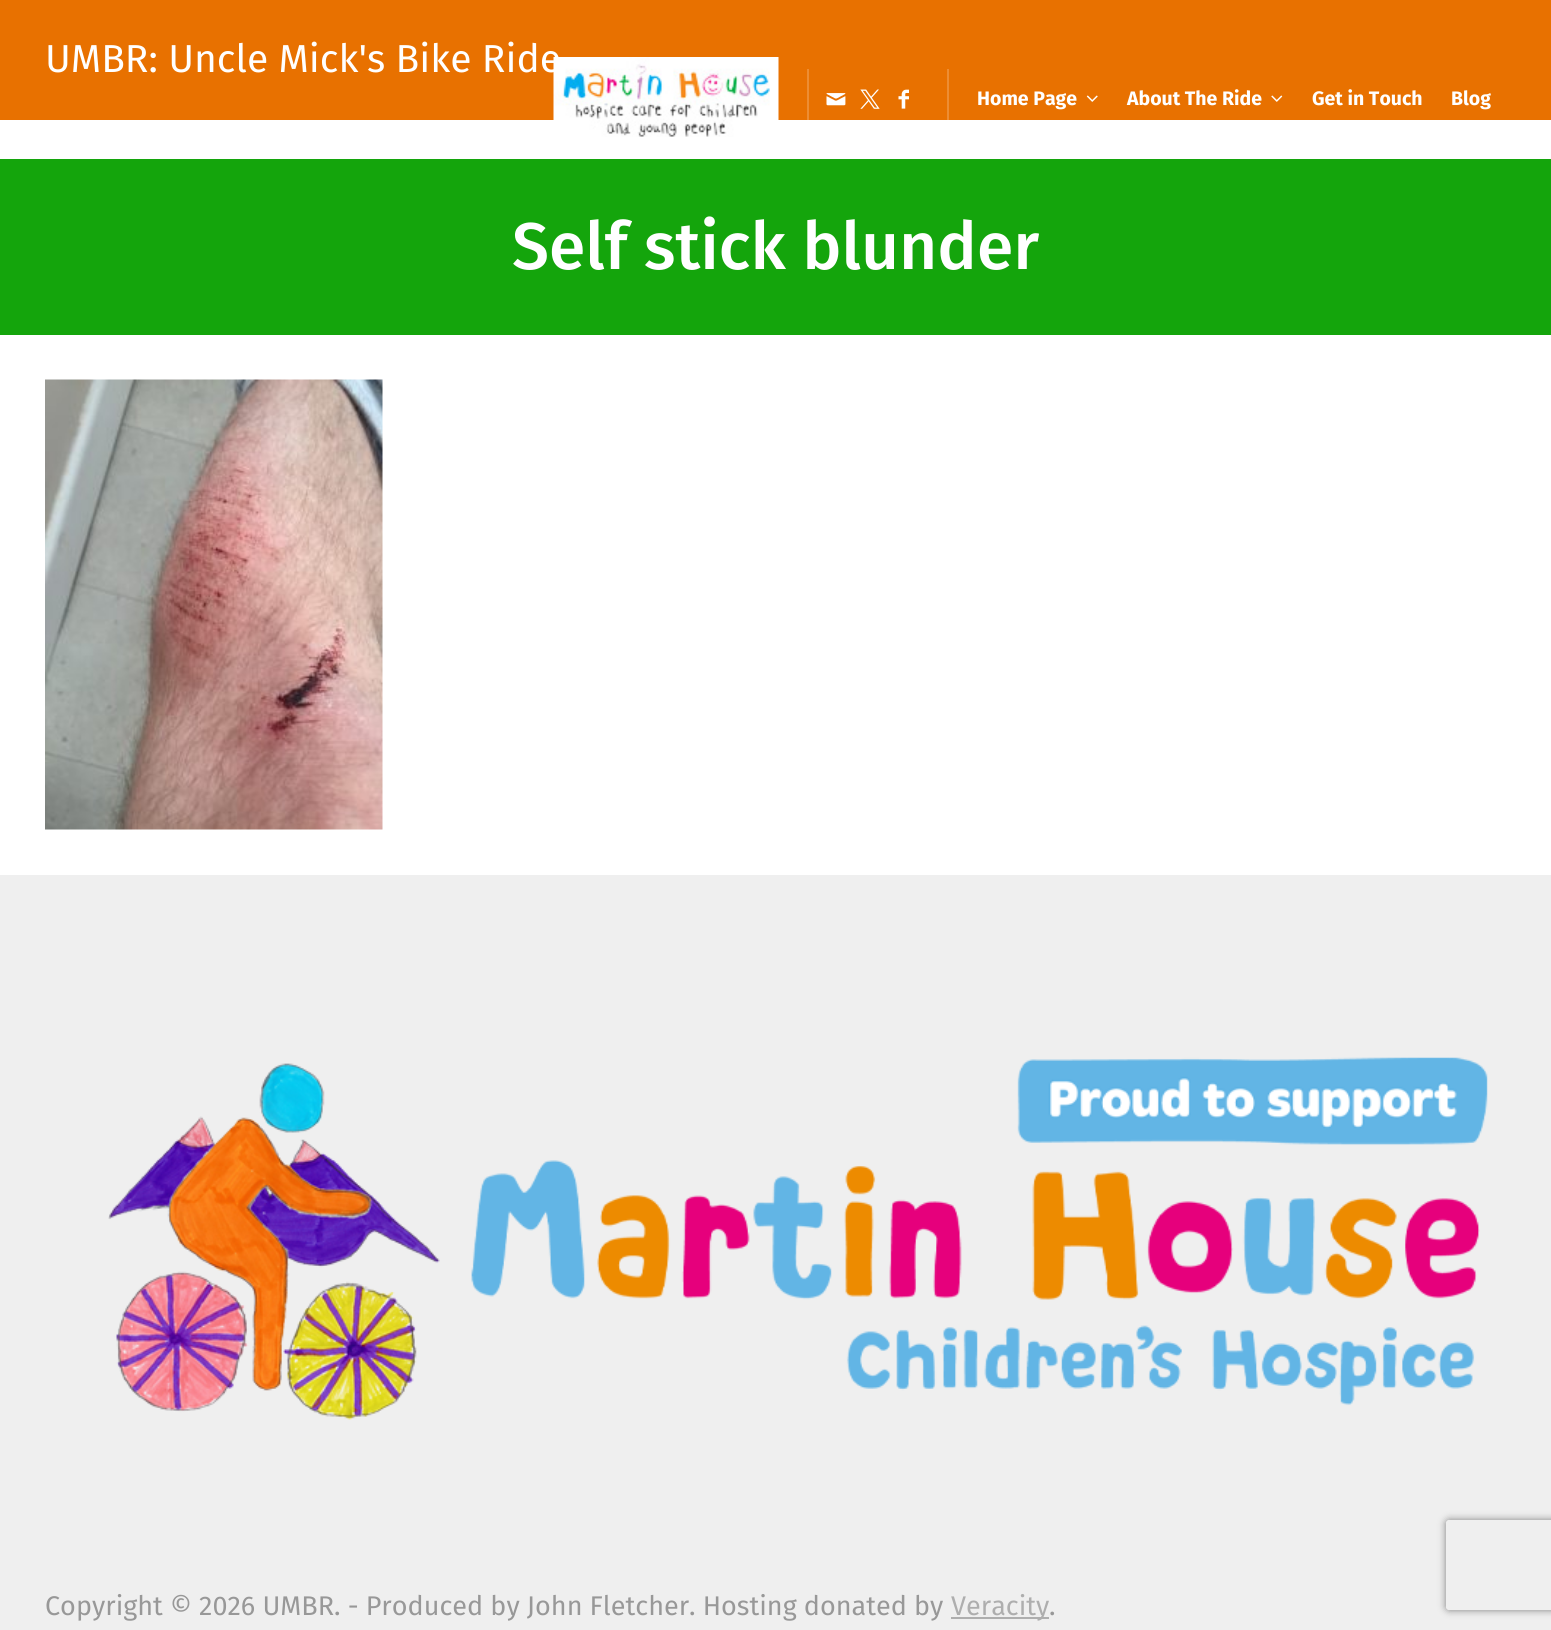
#include <cairo.h>
#include <math.h>
#include <stddef.h>

static cairo_t *c;
static void C(unsigned color){cairo_set_source_rgb(c, (color >> 16) / 255.0, (color >> 8 & 255) / 255.0, (color & 255) / 255.0);}
static void F(const char *family, double size, int italic, int bold){cairo_select_font_face(c, family, italic ? CAIRO_FONT_SLANT_ITALIC : CAIRO_FONT_SLANT_NORMAL,bold ? CAIRO_FONT_WEIGHT_BOLD : CAIRO_FONT_WEIGHT_NORMAL);cairo_set_font_size(c, size);}
static void T(double x, double y, const char *s){cairo_move_to(c, x, y);cairo_show_text(c, s);}
static void R(double x, double y, double w, double h){cairo_rectangle(c, x, y, w, h);cairo_fill(c);}
static void Q(double x, double y, double w, double h, double r){cairo_new_sub_path(c);cairo_arc(c, x + w - r, y + h - r, r, 0, M_PI / 2);cairo_arc(c, x + r, y + h - r, r, M_PI / 2, M_PI);cairo_arc(c, x + r, y + r, r, M_PI, 1.5 * M_PI);cairo_arc(c, x + w - r, y + r, r, 1.5 * M_PI, 2 * M_PI);cairo_close_path(c);}
static void S(double x, double y, double w, double h, double r, double blur, double alpha){cairo_push_group_with_content(c, CAIRO_CONTENT_ALPHA);cairo_set_operator(c, CAIRO_OPERATOR_SOURCE);for (int i = 15; i >= -15 && fmin(w, h) + blur * i / 3 > 0; i -= 2) {double e = blur * i / 6;cairo_set_source_rgba(c, 0, 0, 0, alpha * erfc((i - 1) / 8.5) / 2);Q(x - e, y - e, w + 2 * e, h + 2 * e, fmax(0, fmin(r + e + blur * .6, fmin(w, h) / 2 + e)));cairo_fill(c);}cairo_pattern_t *soft = cairo_pop_group(c);cairo_mask(c, soft);cairo_pattern_destroy(soft);}
static void I(const char *path, double x, double y, double w, double h){cairo_surface_t *image = cairo_image_surface_create_from_png(path);cairo_save(c);cairo_set_source_surface(c, image, x, y);cairo_rectangle(c, x, y, w, h);cairo_fill(c);cairo_restore(c);cairo_surface_destroy(image);}
int main(void) {
cairo_surface_t *surface = cairo_image_surface_create(CAIRO_FORMAT_RGB24, 1551, 1630);
c = cairo_create(surface);
cairo_font_options_t *options = cairo_font_options_create();
cairo_font_options_set_hint_metrics(options, CAIRO_HINT_METRICS_OFF);
cairo_font_options_set_hint_style(options, CAIRO_HINT_STYLE_NONE);
cairo_set_font_options(c, options);
cairo_set_miter_limit(c, 4);
C(0xffffff);
cairo_paint(c);
C(0xe87100);
R(0,0,1551,120);
C(0xed8d33);
R(947,69,2,51);
R(807,69,2,51);
F("Fira Sans",39,0,0);
C(0xffffff);
T(45,72,"UMBR: Uncle Mick's Bike Ride");
I("1.png",553,57,226,80);
I("2.png",826,93,20,13);
I("3.png",860,89,20,20);
I("4.png",898,89,11,20);
F("Fira Sans",19.5,0,1);
T(977,105,"Home Page");
I("5.png",1086,95,12,7);
T(1127,105,"About The Ride");
I("6.png",1271,95,12,7);
T(1312,105,"Get in Touch");
T(1451,105,"Blog");
C(0x14a50c);
R(0,159,1551,176);
F("Fira Sans Medium",66,0,0);
C(0xffffff);
T(512,269,"Self stick blunder");
I("7.png",45,379,338,451);
C(0xefefef);
R(0,875,1551,755);
I("8.png",108,1057,1380,363);
F("Fira Sans",27,0,0);
C(0x989898);
T(45,1615,"Copyright © 2026 UMBR. - Produced by John Fletcher. Hosting donated by");
C(0xaeaeae);
R(951,1617,98,2);
T(951,1615,"Veracity");
C(0x989898);
T(1049,1615,".");
cairo_save(c);
cairo_set_fill_rule(c,CAIRO_FILL_RULE_EVEN_ODD);
cairo_new_path(c);
cairo_move_to(c,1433,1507);
cairo_line_to(c,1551,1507);
cairo_line_to(c,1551,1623);
cairo_line_to(c,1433,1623);
cairo_close_path(c);
cairo_move_to(c,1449,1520);
cairo_line_to(c,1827,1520);
cairo_curve_to(c,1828.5,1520,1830,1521.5,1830,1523);
cairo_line_to(c,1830,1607);
cairo_curve_to(c,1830,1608.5,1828.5,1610,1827,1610);
cairo_line_to(c,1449,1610);
cairo_curve_to(c,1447.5,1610,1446,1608.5,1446,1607);
cairo_line_to(c,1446,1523);
cairo_curve_to(c,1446,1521.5,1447.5,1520,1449,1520);
cairo_close_path(c);
cairo_clip(c);
C(0x808080);
S(1446,1520,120,90,3,4,1);
cairo_restore(c);
cairo_surface_write_to_png(surface, "o.png");
cairo_font_options_destroy(options);
cairo_destroy(c);
cairo_surface_destroy(surface);
return 0;
}
